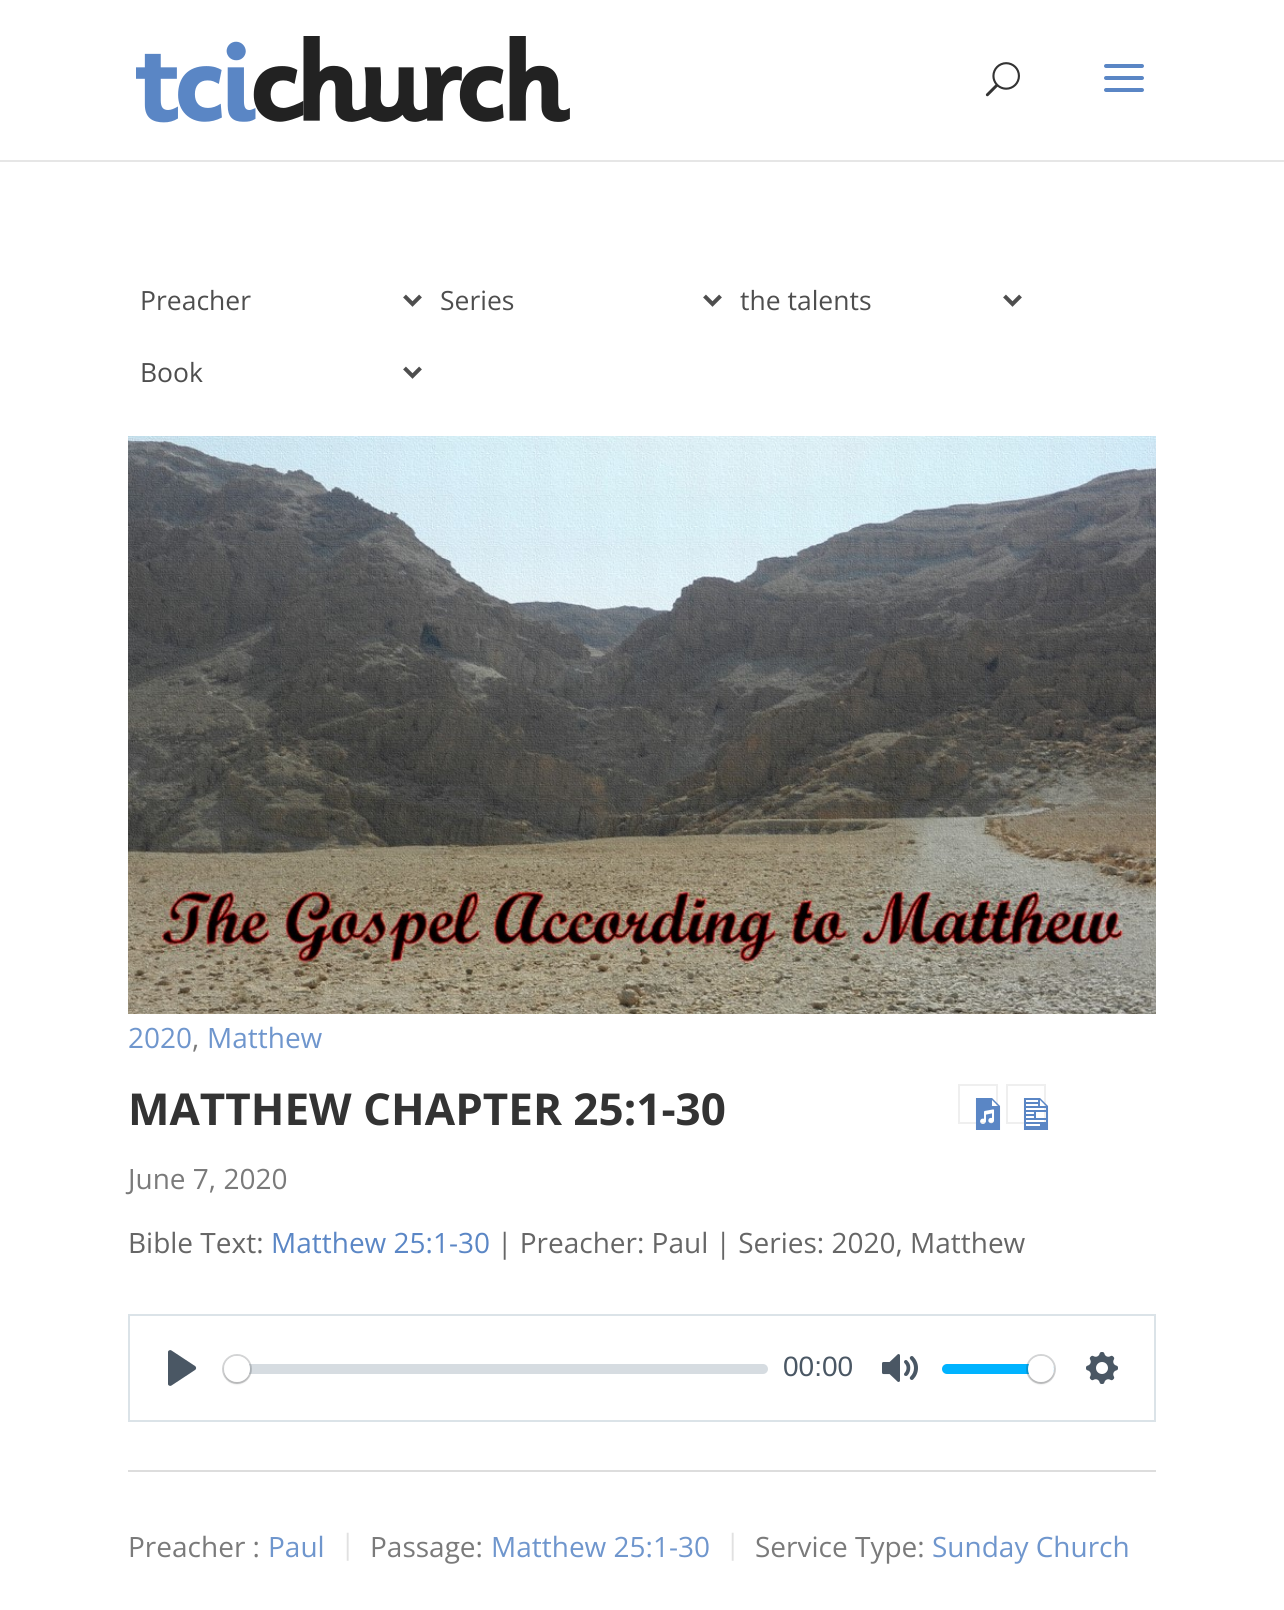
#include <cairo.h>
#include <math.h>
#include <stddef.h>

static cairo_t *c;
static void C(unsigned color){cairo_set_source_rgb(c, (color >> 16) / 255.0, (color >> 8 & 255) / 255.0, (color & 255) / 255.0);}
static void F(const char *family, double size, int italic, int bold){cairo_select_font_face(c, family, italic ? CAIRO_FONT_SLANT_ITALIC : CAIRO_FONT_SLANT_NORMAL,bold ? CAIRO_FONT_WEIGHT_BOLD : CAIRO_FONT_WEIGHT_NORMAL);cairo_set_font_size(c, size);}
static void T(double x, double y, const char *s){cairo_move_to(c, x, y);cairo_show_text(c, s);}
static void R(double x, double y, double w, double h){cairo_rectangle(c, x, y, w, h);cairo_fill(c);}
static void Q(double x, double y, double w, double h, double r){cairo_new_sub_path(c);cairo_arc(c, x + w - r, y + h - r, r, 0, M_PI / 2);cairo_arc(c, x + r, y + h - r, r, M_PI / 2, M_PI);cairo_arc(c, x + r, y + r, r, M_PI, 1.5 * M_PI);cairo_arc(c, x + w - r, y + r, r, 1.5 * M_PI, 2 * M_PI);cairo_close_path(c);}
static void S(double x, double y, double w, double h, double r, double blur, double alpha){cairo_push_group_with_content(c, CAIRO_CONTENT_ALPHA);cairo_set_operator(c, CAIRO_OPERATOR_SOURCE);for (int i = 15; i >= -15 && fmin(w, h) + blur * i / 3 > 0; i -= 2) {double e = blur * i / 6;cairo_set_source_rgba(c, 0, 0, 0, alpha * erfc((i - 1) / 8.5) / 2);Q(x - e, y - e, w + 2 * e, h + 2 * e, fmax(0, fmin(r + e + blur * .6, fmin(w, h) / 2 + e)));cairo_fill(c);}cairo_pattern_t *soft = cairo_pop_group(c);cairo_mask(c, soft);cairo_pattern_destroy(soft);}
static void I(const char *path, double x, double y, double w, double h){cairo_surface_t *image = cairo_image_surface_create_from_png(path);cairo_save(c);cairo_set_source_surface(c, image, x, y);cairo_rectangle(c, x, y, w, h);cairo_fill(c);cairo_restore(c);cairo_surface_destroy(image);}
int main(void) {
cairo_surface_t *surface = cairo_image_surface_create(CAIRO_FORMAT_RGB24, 1284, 1610);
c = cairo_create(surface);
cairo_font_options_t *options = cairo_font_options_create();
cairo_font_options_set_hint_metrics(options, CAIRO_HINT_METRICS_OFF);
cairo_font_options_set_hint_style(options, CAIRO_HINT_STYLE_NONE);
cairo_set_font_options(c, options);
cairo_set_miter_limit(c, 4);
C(0xffffff);
cairo_paint(c);
C(0xe6e6e6);
R(0,160,1284,2);
I("1.png",136,36,434,87);
I("2.png",985,62,35,35);
I("3.png",1104,64,40,28);
cairo_new_path(c);
cairo_move_to(c,404.5,296);
cairo_line_to(c,412.5,304);
cairo_line_to(c,420.5,296);
C(0x4e4e4e);
cairo_set_line_width(c,4);
cairo_stroke(c);
F("Open Sans",26.5,0,0);
T(140,310,"Preacher");
cairo_new_path(c);
cairo_move_to(c,704.5,296);
cairo_line_to(c,712.5,304);
cairo_line_to(c,720.5,296);
cairo_stroke(c);
T(440,310,"Series");
cairo_new_path(c);
cairo_move_to(c,1004.5,296);
cairo_line_to(c,1012.5,304);
cairo_line_to(c,1020.5,296);
cairo_stroke(c);
T(740,310,"the talents");
cairo_new_path(c);
cairo_move_to(c,404.5,368);
cairo_line_to(c,412.5,376);
cairo_line_to(c,420.5,368);
cairo_stroke(c);
T(140,382,"Book");
I("4.png",128,436,1028,578);
F("Open Sans",28,0,0);
C(0x6f96cd);
T(128,1048,"2020");
C(0x7a7a7a);
T(192,1048,",");
C(0x6f96cd);
T(207,1048,"Matthew");
F("Open Sans",44,0,1);
C(0x333333);
T(128,1125,"MATTHEW CHAPTER 25:1-30");
F("Open Sans",28,0,0);
C(0x7a7a7a);
T(128,1189,"June 7, 2020");
cairo_rectangle(c,959,1085,38,38);
C(0xefefef);
cairo_set_line_width(c,2);
cairo_stroke(c);
I("5.png",975,1098,26,32);
cairo_rectangle(c,1007,1085,38,38);
cairo_stroke(c);
I("6.png",1023,1098,26,32);
C(0x666666);
T(128,1253,"Bible Text:");
C(0x5a86c5);
T(271,1253,"Matthew 25:1-30");
C(0x666666);
T(497,1253,"| Preacher: Paul | Series: 2020, Matthew");
cairo_rectangle(c,129,1315,1026,106);
C(0xdbe3e8);
cairo_stroke(c);
C(0x4a5764);
cairo_new_path(c);
cairo_move_to(c,195,1366);
cairo_line_to(c,171.5,1350.5);
cairo_curve_to(c,170,1349.5,168,1350.5,168,1352);
cairo_line_to(c,168,1384);
cairo_curve_to(c,168,1385.5,170,1386.5,171.5,1385.5);
cairo_line_to(c,195,1370);
cairo_curve_to(c,196.5,1369,196.5,1367,195,1366);
cairo_close_path(c);
cairo_fill(c);
cairo_set_source_rgba(c,0.757,0.788,0.82,0.66);
Q(224,1364,544,10,5);
cairo_fill(c);
cairo_arc(c,237,1369,14,0,2 * M_PI);
cairo_set_source_rgba(c,0.137,0.161,0.184,0.2);
cairo_stroke(c);
C(0x000000);
S(224,1358,26,26,13,1,.15);
C(0xffffff);
cairo_arc(c,237,1369,13,0,2 * M_PI);
cairo_fill(c);
F("Liberation Sans",28,0,0);
C(0x4a5764);
T(783,1376,"00:00");
I("7.png",882,1354,36,28);
C(0x00b3ff);
Q(942,1364,112,10,5);
cairo_fill(c);
cairo_arc(c,1041,1369,14,0,2 * M_PI);
cairo_set_source_rgba(c,0.137,0.161,0.184,0.2);
cairo_stroke(c);
C(0x000000);
S(1028,1358,26,26,13,1,.15);
C(0xffffff);
cairo_arc(c,1041,1369,13,0,2 * M_PI);
cairo_fill(c);
I("8.png",1086,1352,32,32);
C(0xdddddd);
R(128,1470,1028,2);
F("Open Sans",28,0,0);
C(0x7a7a7a);
T(128,1557,"Preacher :");
C(0x6f96cd);
T(268,1557,"Paul");
C(0xe1e1e1);
T(340,1554,"|");
C(0x7a7a7a);
T(370,1557,"Passage:");
C(0x6f96cd);
T(491,1557,"Matthew 25:1-30");
C(0xe1e1e1);
T(725,1554,"|");
C(0x7a7a7a);
T(755,1557,"Service Type:");
C(0x6f96cd);
T(932,1557,"Sunday Church");
cairo_surface_write_to_png(surface, "o.png");
cairo_font_options_destroy(options);
cairo_destroy(c);
cairo_surface_destroy(surface);
return 0;
}
